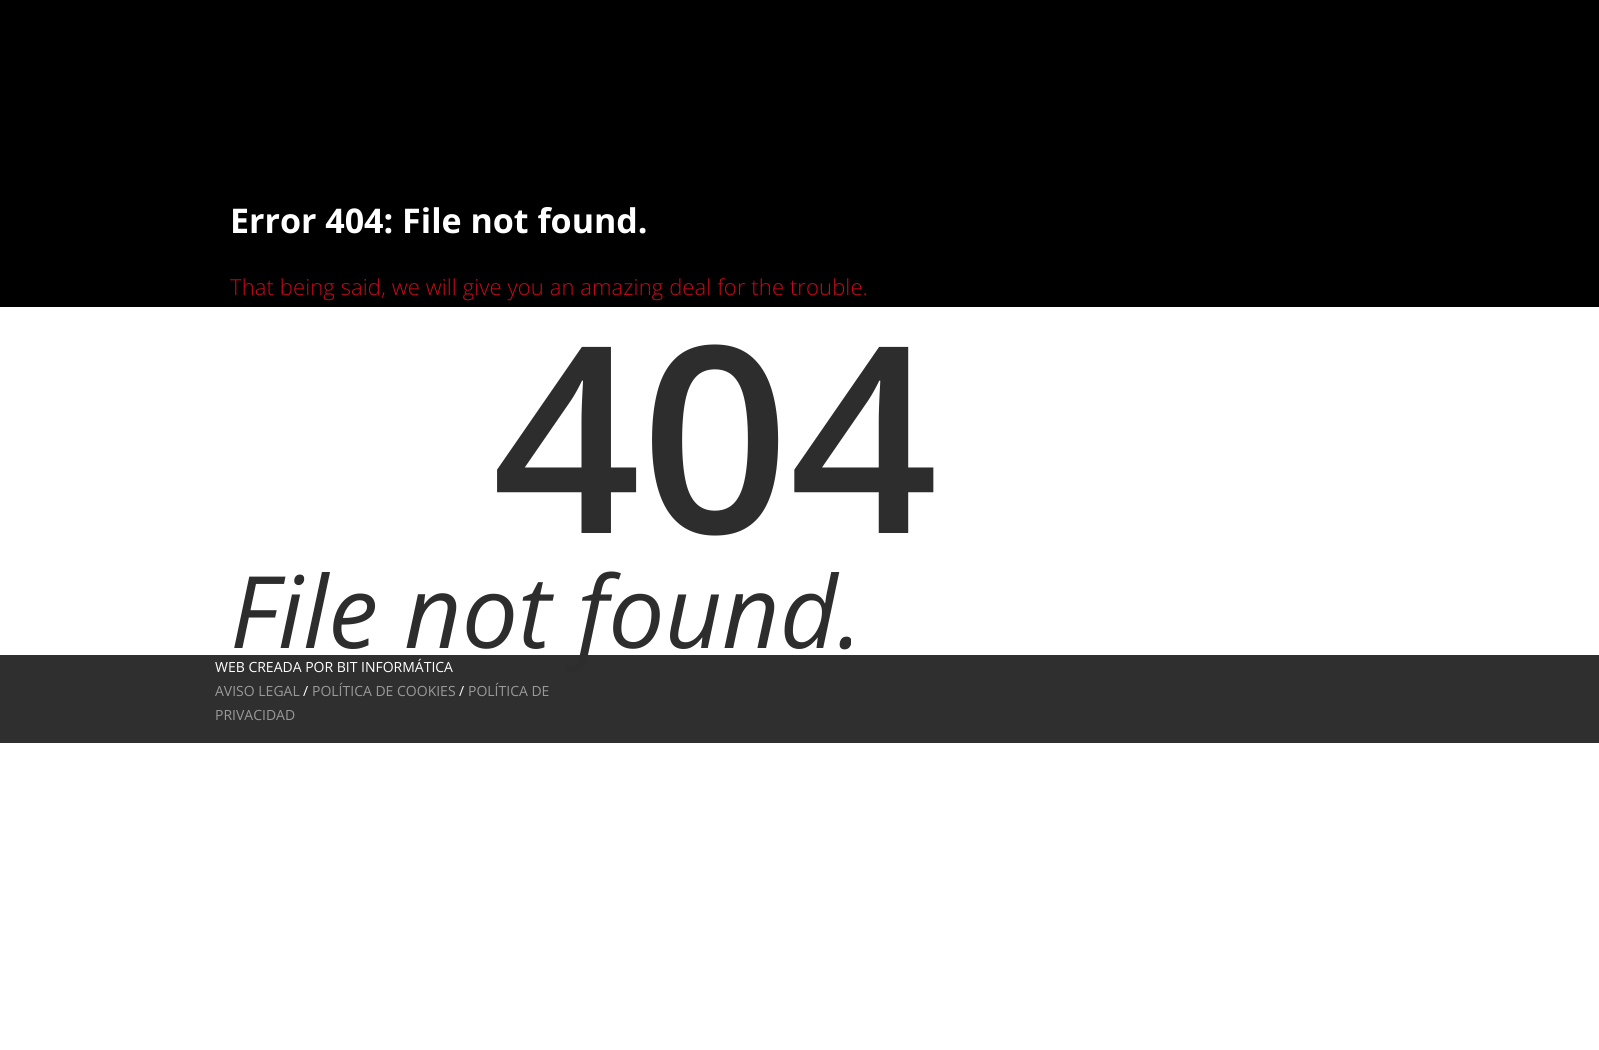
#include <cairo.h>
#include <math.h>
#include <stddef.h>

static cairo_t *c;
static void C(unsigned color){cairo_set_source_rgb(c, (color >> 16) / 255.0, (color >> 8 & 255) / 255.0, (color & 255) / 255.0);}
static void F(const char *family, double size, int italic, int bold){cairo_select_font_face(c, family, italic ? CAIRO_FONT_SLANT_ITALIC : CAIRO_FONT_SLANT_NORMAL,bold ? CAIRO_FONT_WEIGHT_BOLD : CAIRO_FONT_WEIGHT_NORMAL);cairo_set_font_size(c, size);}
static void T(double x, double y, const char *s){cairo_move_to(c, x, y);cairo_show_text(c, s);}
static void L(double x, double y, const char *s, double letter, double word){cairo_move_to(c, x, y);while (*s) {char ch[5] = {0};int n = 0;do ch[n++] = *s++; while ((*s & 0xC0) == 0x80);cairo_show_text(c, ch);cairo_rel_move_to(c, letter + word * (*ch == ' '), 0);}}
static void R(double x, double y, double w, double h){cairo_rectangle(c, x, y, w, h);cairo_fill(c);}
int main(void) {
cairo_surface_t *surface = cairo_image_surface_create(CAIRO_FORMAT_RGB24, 1599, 1050);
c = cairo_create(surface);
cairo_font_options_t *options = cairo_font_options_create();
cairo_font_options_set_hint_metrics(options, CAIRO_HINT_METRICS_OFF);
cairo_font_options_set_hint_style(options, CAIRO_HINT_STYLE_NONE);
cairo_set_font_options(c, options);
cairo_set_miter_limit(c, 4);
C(0xffffff);
cairo_paint(c);
C(0x000000);
R(0,0,1599,307);
F("Open Sans",34,0,1);
C(0xffffff);
T(230,233,"Error 404: File not found.");
F("Open Sans Light",22,0,0);
C(0xc7081b);
L(230,295,"That being said, we will give you an amazing deal for the trouble.",.1,0);
F("Open Sans SemiBold",260,0,0);
C(0x2d2d2d);
T(492,533,"404");
C(0x2f2f2f);
R(0,655,1599,88);
F("Open Sans",100,1,0);
C(0x2d2d2d);
T(230,648,"File not found.");
F("Open Sans",14,0,0);
C(0xffffff);
T(215,672,"WEB CREADA POR BIT INFORMÁTICA");
C(0x999999);
T(215,696,"AVISO LEGAL");
C(0xffffff);
T(303,696,"/");
C(0x999999);
T(312,696,"POLÍTICA DE COOKIES");
C(0xffffff);
T(459,696,"/");
C(0x999999);
T(468,696,"POLÍTICA DE");
T(215,720,"PRIVACIDAD");
cairo_surface_write_to_png(surface, "o.png");
cairo_font_options_destroy(options);
cairo_destroy(c);
cairo_surface_destroy(surface);
return 0;
}
